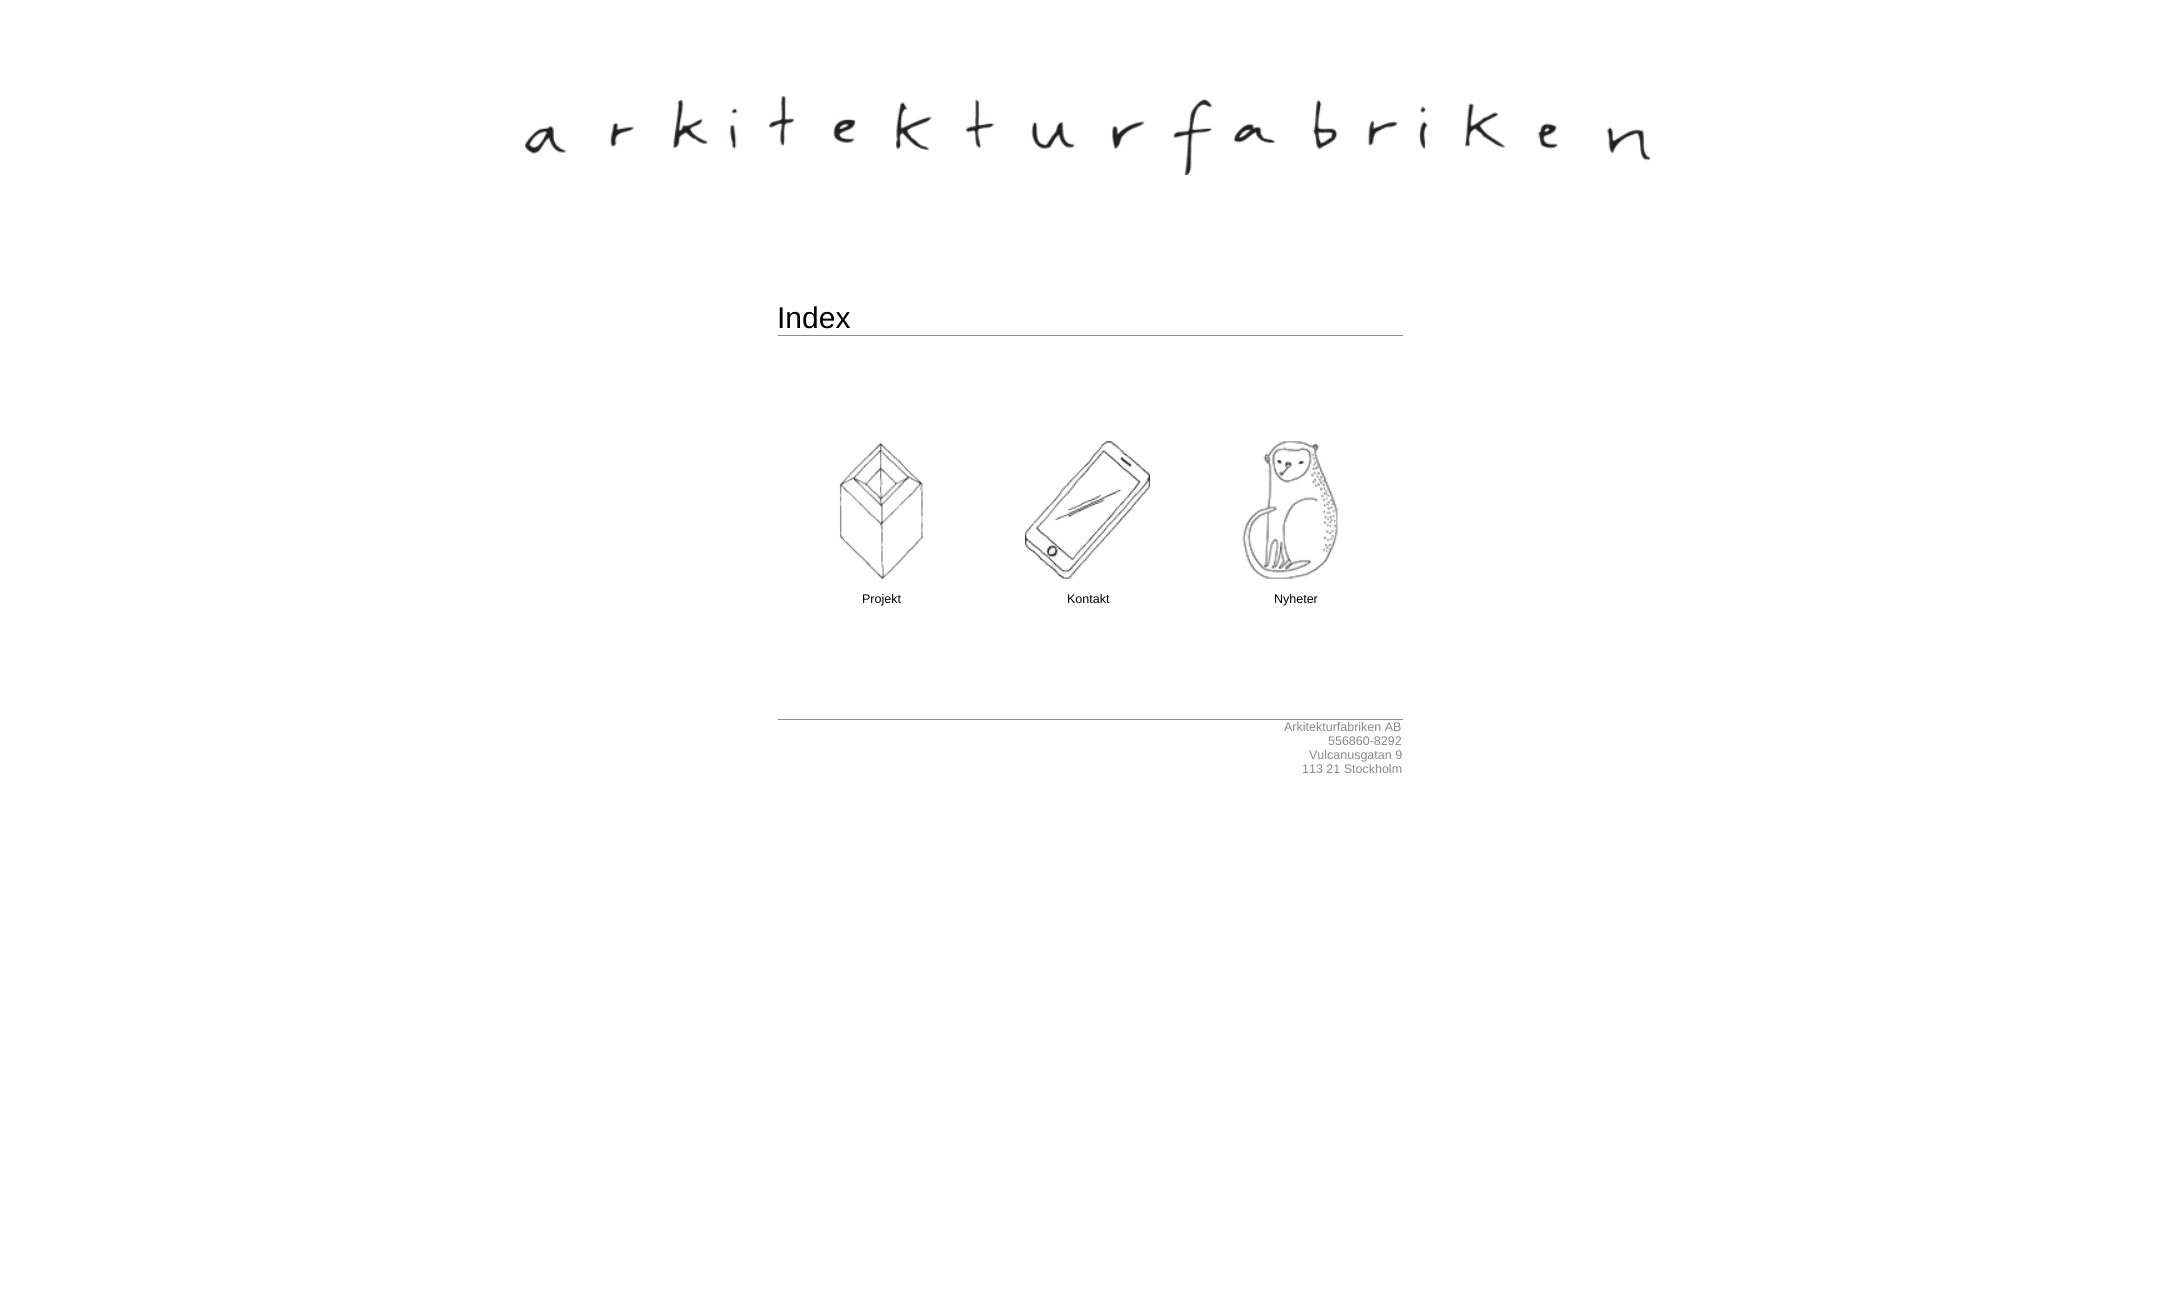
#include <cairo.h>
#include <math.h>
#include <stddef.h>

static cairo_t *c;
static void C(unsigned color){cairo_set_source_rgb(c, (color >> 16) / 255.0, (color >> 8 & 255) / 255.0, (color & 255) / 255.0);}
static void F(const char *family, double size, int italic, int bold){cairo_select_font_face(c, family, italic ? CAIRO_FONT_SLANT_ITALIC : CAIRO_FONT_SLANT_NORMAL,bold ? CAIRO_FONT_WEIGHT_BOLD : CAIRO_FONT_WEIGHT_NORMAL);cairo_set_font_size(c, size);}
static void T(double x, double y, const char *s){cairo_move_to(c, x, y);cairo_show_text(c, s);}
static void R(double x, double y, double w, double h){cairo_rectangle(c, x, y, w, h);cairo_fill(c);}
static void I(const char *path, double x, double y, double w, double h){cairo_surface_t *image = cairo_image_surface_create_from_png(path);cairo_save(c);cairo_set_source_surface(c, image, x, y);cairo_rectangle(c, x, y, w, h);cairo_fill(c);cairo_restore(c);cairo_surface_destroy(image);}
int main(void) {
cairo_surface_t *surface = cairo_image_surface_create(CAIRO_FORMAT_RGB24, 2173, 1312);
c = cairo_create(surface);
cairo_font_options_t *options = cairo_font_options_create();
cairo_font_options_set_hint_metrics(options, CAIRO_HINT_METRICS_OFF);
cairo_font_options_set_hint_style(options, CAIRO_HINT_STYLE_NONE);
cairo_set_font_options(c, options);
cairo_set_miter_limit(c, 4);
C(0xffffff);
cairo_paint(c);
I("1.png",525,96,1125,79);
C(0x8c8c8c);
R(778,335,625,1);
F("Liberation Sans",30,0,0);
C(0x000000);
T(777,328,"Index");
I("2.png",839,442,85,137);
F("Liberation Sans",12.5,0,0);
T(862,603,"Projekt");
I("3.png",1025,441,125,138);
T(1067,603,"Kontakt");
I("4.png",1242,441,96,138);
T(1274,603,"Nyheter");
C(0x8c8c8c);
R(778,719,625,1);
C(0x888888);
T(1284,731,"Arkitekturfabriken AB");
T(1328,745,"556860-8292");
T(1309,759,"Vulcanusgatan 9");
T(1302,773,"113 21 Stockholm");
cairo_surface_write_to_png(surface, "o.png");
cairo_font_options_destroy(options);
cairo_destroy(c);
cairo_surface_destroy(surface);
return 0;
}
